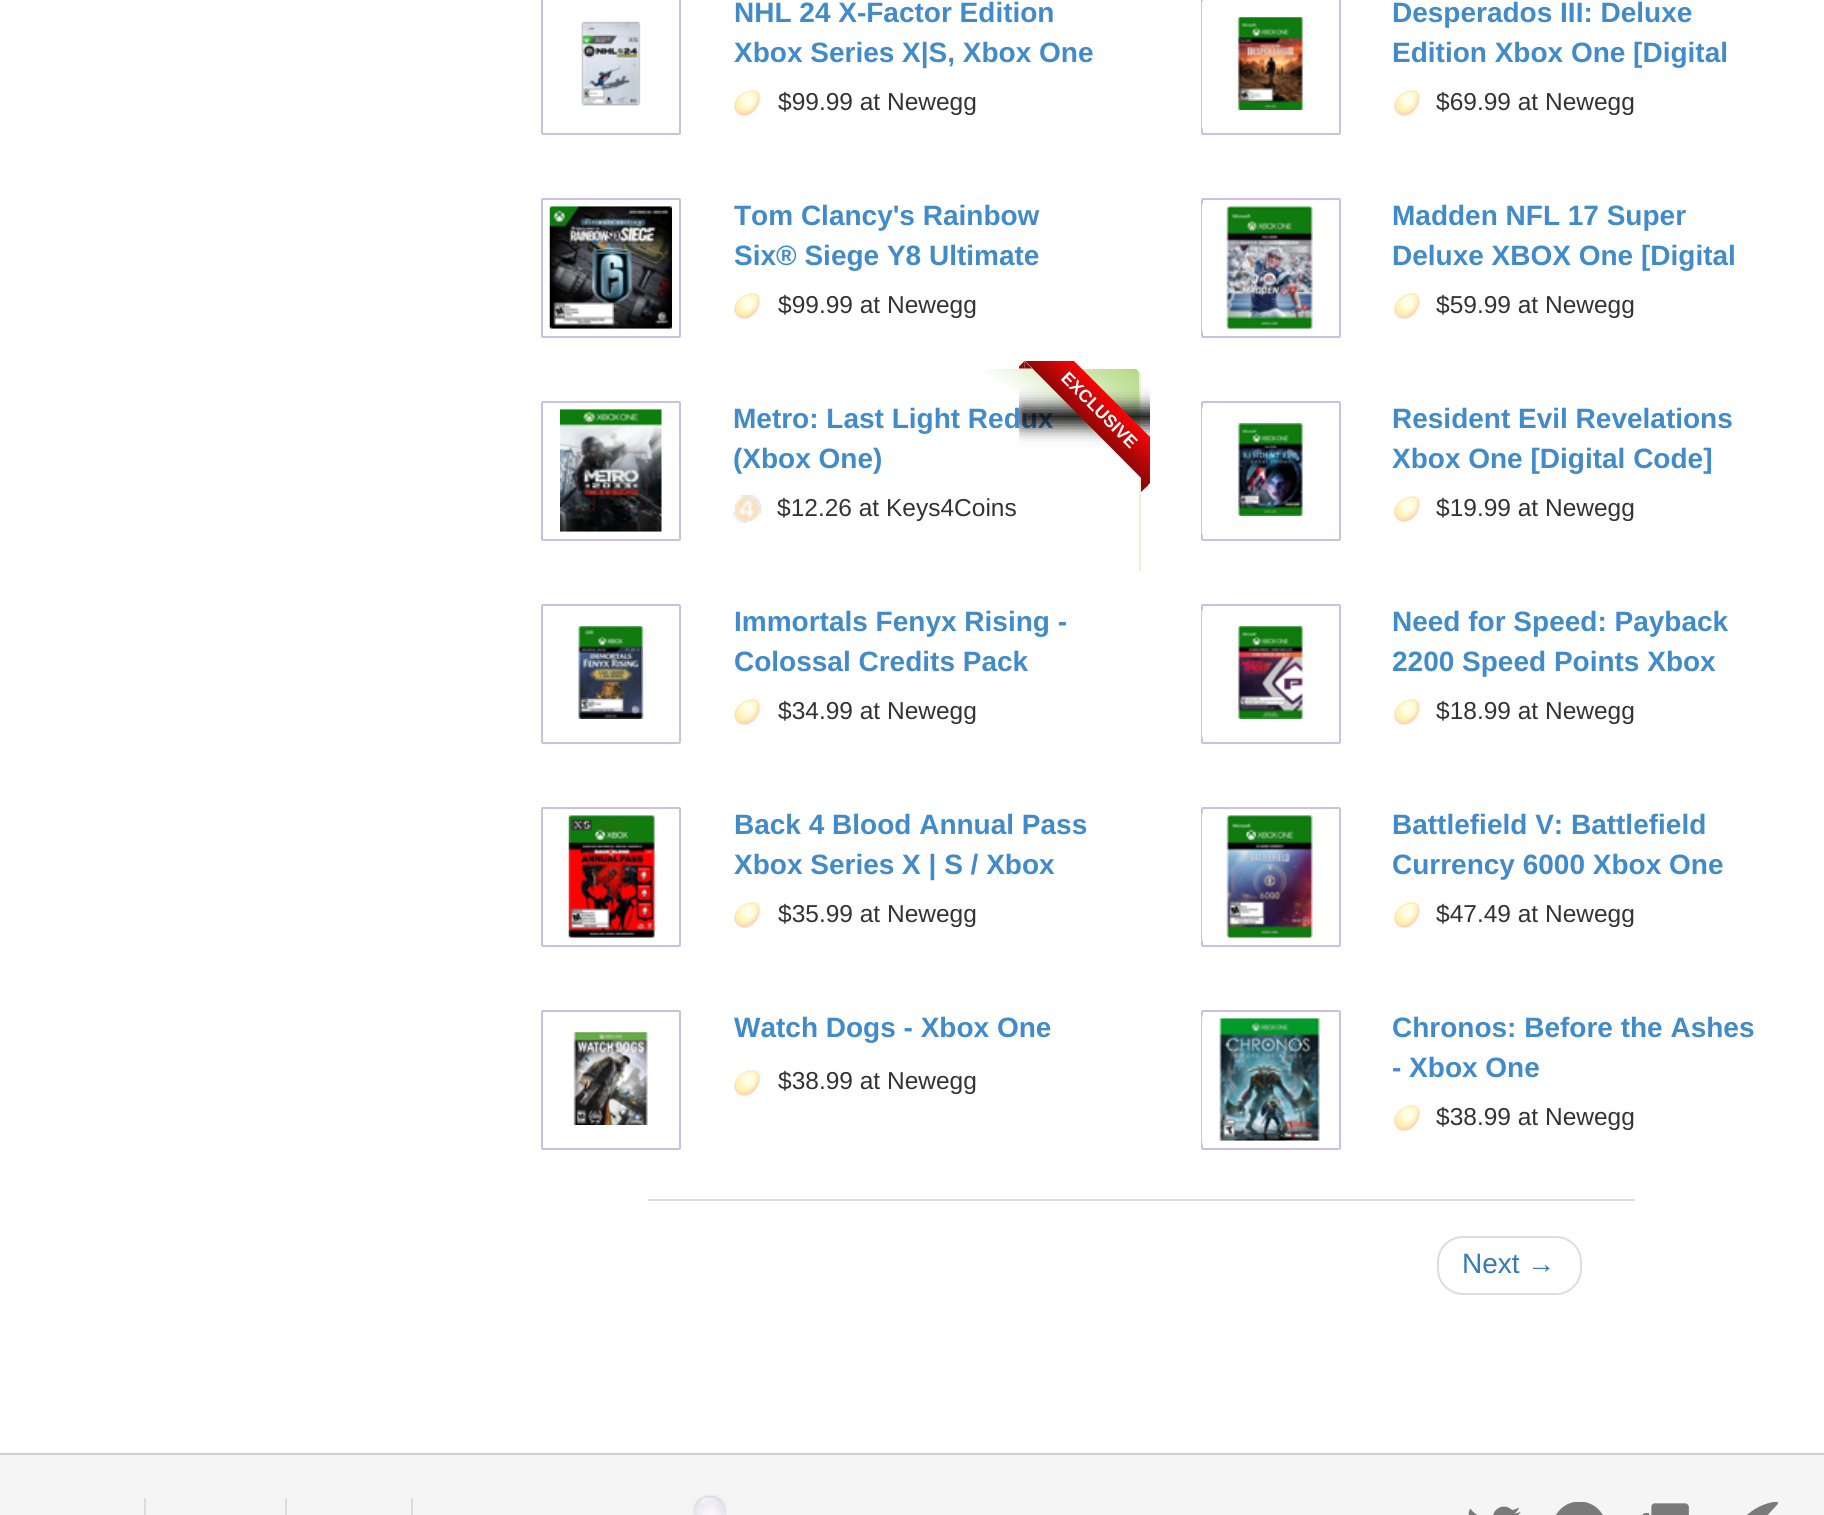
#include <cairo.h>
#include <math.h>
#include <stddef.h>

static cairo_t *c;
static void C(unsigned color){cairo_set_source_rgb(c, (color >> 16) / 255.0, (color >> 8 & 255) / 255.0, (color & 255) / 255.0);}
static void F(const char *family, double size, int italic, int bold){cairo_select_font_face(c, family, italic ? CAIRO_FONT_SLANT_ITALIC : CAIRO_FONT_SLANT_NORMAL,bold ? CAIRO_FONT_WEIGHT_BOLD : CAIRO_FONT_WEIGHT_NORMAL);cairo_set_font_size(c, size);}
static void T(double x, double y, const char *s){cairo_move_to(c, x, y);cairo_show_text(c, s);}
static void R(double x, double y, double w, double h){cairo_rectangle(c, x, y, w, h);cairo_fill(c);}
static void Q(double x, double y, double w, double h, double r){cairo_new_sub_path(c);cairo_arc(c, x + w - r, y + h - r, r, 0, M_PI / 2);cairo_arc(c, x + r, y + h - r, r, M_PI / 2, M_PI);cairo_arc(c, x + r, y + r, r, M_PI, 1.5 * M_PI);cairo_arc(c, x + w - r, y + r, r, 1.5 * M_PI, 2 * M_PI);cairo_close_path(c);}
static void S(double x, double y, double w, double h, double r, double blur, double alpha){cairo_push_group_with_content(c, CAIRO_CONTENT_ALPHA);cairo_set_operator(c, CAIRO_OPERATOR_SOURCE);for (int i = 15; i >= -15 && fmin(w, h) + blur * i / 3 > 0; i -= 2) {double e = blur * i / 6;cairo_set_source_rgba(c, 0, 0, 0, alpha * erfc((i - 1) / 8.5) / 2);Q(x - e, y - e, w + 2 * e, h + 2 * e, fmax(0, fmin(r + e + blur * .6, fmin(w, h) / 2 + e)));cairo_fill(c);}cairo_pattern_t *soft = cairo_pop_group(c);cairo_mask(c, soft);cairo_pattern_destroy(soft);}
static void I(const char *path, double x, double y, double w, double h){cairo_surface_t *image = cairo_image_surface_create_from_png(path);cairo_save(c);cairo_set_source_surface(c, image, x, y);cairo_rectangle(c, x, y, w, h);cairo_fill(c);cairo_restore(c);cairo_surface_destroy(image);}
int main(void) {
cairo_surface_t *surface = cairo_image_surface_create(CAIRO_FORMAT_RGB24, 1824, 1515);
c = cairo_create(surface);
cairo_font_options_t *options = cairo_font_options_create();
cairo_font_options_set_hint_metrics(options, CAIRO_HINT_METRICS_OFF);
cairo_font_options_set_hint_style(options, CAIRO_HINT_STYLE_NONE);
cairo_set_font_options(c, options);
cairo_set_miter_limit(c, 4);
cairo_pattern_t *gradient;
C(0xffffff);
cairo_paint(c);
Q(542,-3,138,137,1);
C(0xcdbfe3);
cairo_stroke(c);
I("1.png",581,21,60,85);
F("Liberation Sans",28,0,1);
C(0x428bca);
T(734,22,"NHL 24 X-Factor Edition");
T(734,62,"Xbox Series X|S, Xbox One");
I("2.png",734,90,27,26);
F("Liberation Sans",24.5,0,0);
C(0x333333);
T(778,110,"$99.99 at Newegg");
Q(1202,-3,138,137,1);
C(0xcdbfe3);
cairo_stroke(c);
C(0xffffff);
Q(1202,-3,137,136,7);
cairo_fill(c);
I("3.png",1236,17,71,93);
F("Liberation Sans",28,0,1);
C(0x428bca);
T(1392,22,"Desperados III: Deluxe");
T(1392,62,"Edition Xbox One [Digital");
I("4.png",1394,90,26,26);
F("Liberation Sans",24.5,0,0);
C(0x333333);
T(1436,110,"$69.99 at Newegg");
Q(542,199,138,138,1);
C(0xcdbfe3);
cairo_stroke(c);
I("5.png",549,206,123,123);
F("Liberation Sans",28,0,1);
C(0x428bca);
T(734,225,"Tom Clancy's Rainbow");
T(734,265,"Six® Siege Y8 Ultimate");
I("2.png",734,293,27,26);
F("Liberation Sans",24.5,0,0);
C(0x333333);
T(778,313,"$99.99 at Newegg");
Q(1202,199,138,138,1);
C(0xcdbfe3);
cairo_stroke(c);
C(0xffffff);
Q(1202,200,137,136,7);
cairo_fill(c);
I("6.png",1226,206,87,123);
F("Liberation Sans",28,0,1);
C(0x428bca);
T(1392,225,"Madden NFL 17 Super");
T(1392,265,"Deluxe XBOX One [Digital");
I("4.png",1394,293,26,26);
F("Liberation Sans",24.5,0,0);
C(0x333333);
T(1436,313,"$59.99 at Newegg");
C(0xe8f4d9);
R(1139,373,2,198);
Q(542,402,138,138,1);
C(0xcdbfe3);
cairo_stroke(c);
I("7.png",560,409,102,123);
gradient = cairo_pattern_create_linear(1065,324,884,618);
cairo_pattern_add_color_stop_rgba(gradient,0,0.698,0.851,0.506,1);
cairo_pattern_add_color_stop_rgba(gradient,.25,1,1,1,1);
cairo_set_source(c,gradient);
cairo_pattern_destroy(gradient);
cairo_new_path(c);
cairo_move_to(c,1136,369);
cairo_curve_to(c,1138,370,1139,372,1139,374);
cairo_line_to(c,1139,567);
cairo_curve_to(c,1139,570,1137,572,1134,572);
cairo_line_to(c,815,572);
cairo_curve_to(c,812,572,810,570,810,567);
cairo_line_to(c,810,374);
cairo_curve_to(c,810,372,811,370,813,369);
cairo_close_path(c);
cairo_fill(c);
F("Liberation Sans",28,0,1);
C(0x428bca);
T(733,428,"Metro: Last Light Redux");
T(733,468,"(Xbox One)");
I("8.png",733,495,29,28);
F("Liberation Sans",24.5,0,0);
C(0x333333);
T(777,516,"$12.26 at Keys4Coins");
Q(1202,402,138,138,1);
C(0xcdbfe3);
cairo_stroke(c);
C(0xffffff);
Q(1202,403,137,136,7);
cairo_fill(c);
cairo_save(c);
cairo_rectangle(c,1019,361,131,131);
cairo_clip(c);
C(0x000000);
S(1020,408,158,17,0,9,1);
cairo_restore(c);
cairo_save(c);
cairo_rectangle(c,1019,361,131,131);
cairo_clip(c);
gradient = cairo_pattern_create_linear(1111,398,1086,423);
cairo_pattern_add_color_stop_rgba(gradient,0,0.969,0.02,0.02,1);
cairo_pattern_add_color_stop_rgba(gradient,1,0.561,0.031,0.031,1);
cairo_set_source(c,gradient);
cairo_pattern_destroy(gradient);
cairo_new_path(c);
cairo_move_to(c,1049,336);
cairo_line_to(c,1173,460);
cairo_line_to(c,1148,485);
cairo_line_to(c,1025,361);
cairo_close_path(c);
cairo_fill(c);
cairo_restore(c);
C(0x8f0808);
cairo_new_path(c);
cairo_move_to(c,1024.5,361);
cairo_line_to(c,1032,368.5);
cairo_line_to(c,1024.5,368.5);
cairo_close_path(c);
cairo_fill(c);
cairo_save(c);
cairo_rectangle(c,1019,361,131,131);
cairo_clip(c);
cairo_new_path(c);
cairo_move_to(c,1017,368.5);
cairo_line_to(c,1024.5,361);
cairo_line_to(c,1024.5,368.5);
cairo_close_path(c);
cairo_fill(c);
cairo_restore(c);
F("Liberation Sans",17.5,0,1);
C(0xffffff);
cairo_save(c);
cairo_translate(c,1060,379);
cairo_rotate(c,45 * M_PI / 180);
T(0,0,"EXCLUSIVE");
cairo_restore(c);
C(0x8f0808);
cairo_new_path(c);
cairo_move_to(c,1141,477.5);
cairo_line_to(c,1148.5,485);
cairo_line_to(c,1141,485);
cairo_close_path(c);
cairo_move_to(c,1148.5,485);
cairo_line_to(c,1141,492);
cairo_line_to(c,1141,485);
cairo_close_path(c);
cairo_fill(c);
I("9.png",1236,423,71,93);
F("Liberation Sans",28,0,1);
C(0x428bca);
T(1392,428,"Resident Evil Revelations");
T(1392,468,"Xbox One [Digital Code]");
I("4.png",1394,496,26,26);
F("Liberation Sans",24.5,0,0);
C(0x333333);
T(1436,516,"$19.99 at Newegg");
Q(542,605,138,138,1);
C(0xcdbfe3);
cairo_stroke(c);
I("10.png",578,626,69,93);
F("Liberation Sans",28,0,1);
C(0x428bca);
T(734,631,"Immortals Fenyx Rising -");
T(734,671,"Colossal Credits Pack");
I("2.png",734,699,27,26);
F("Liberation Sans",24.5,0,0);
C(0x333333);
T(778,719,"$34.99 at Newegg");
Q(1202,605,138,138,1);
C(0xcdbfe3);
cairo_stroke(c);
C(0xffffff);
Q(1202,606,137,136,7);
cairo_fill(c);
I("11.png",1236,626,71,93);
F("Liberation Sans",28,0,1);
C(0x428bca);
T(1392,631,"Need for Speed: Payback");
T(1392,671,"2200 Speed Points Xbox");
I("4.png",1394,699,26,26);
F("Liberation Sans",24.5,0,0);
C(0x333333);
T(1436,719,"$18.99 at Newegg");
Q(542,808,138,138,1);
C(0xcdbfe3);
cairo_stroke(c);
I("12.png",568,815,87,123);
F("Liberation Sans",28,0,1);
C(0x428bca);
T(734,834,"Back 4 Blood Annual Pass");
T(734,874,"Xbox Series X | S / Xbox");
I("2.png",734,902,27,26);
F("Liberation Sans",24.5,0,0);
C(0x333333);
T(778,922,"$35.99 at Newegg");
Q(1202,808,138,138,1);
C(0xcdbfe3);
cairo_stroke(c);
C(0xffffff);
Q(1202,809,137,136,7);
cairo_fill(c);
I("13.png",1226,815,87,123);
F("Liberation Sans",28,0,1);
C(0x428bca);
T(1392,834,"Battlefield V: Battlefield");
T(1392,874,"Currency 6000 Xbox One");
I("4.png",1394,902,26,26);
F("Liberation Sans",24.5,0,0);
C(0x333333);
T(1436,922,"$47.49 at Newegg");
Q(542,1011,138,138,1);
C(0xcdbfe3);
cairo_stroke(c);
I("14.png",573,1032,75,93);
F("Liberation Sans",28,0,1);
C(0x428bca);
T(734,1037,"Watch Dogs - Xbox One");
I("2.png",734,1070,27,26);
F("Liberation Sans",24.5,0,0);
C(0x333333);
T(778,1089,"$38.99 at Newegg");
Q(1202,1011,138,138,1);
C(0xcdbfe3);
cairo_stroke(c);
C(0xffffff);
Q(1202,1012,137,136,7);
cairo_fill(c);
I("15.png",1219,1018,101,123);
F("Liberation Sans",28,0,1);
C(0x428bca);
T(1392,1037,"Chronos: Before the Ashes");
T(1392,1077,"- Xbox One");
I("4.png",1394,1105,26,26);
F("Liberation Sans",24.5,0,0);
C(0x333333);
T(1436,1125,"$38.99 at Newegg");
C(0xdddddd);
R(648,1199,987,2);
Q(1438,1237,143,57,25);
cairo_stroke(c);
F("Liberation Sans",28,0,0);
C(0x337ab7);
T(1462,1273,"Next →");
C(0xf5f5f5);
R(0,1455,1824,60);
C(0xcccccc);
R(0,1453,1824,2);
C(0xdddddd);
R(144,1498,2,17);
R(285,1498,2,17);
R(411,1498,2,17);
I("16.png",692,1494,35,21);
I("17.png",1468,1506,53,9);
I("18.png",1556,1502,47,13);
I("19.png",1642,1503,47,12);
I("20.png",1747,1502,31,13);
cairo_surface_write_to_png(surface, "o.png");
cairo_font_options_destroy(options);
cairo_destroy(c);
cairo_surface_destroy(surface);
return 0;
}
